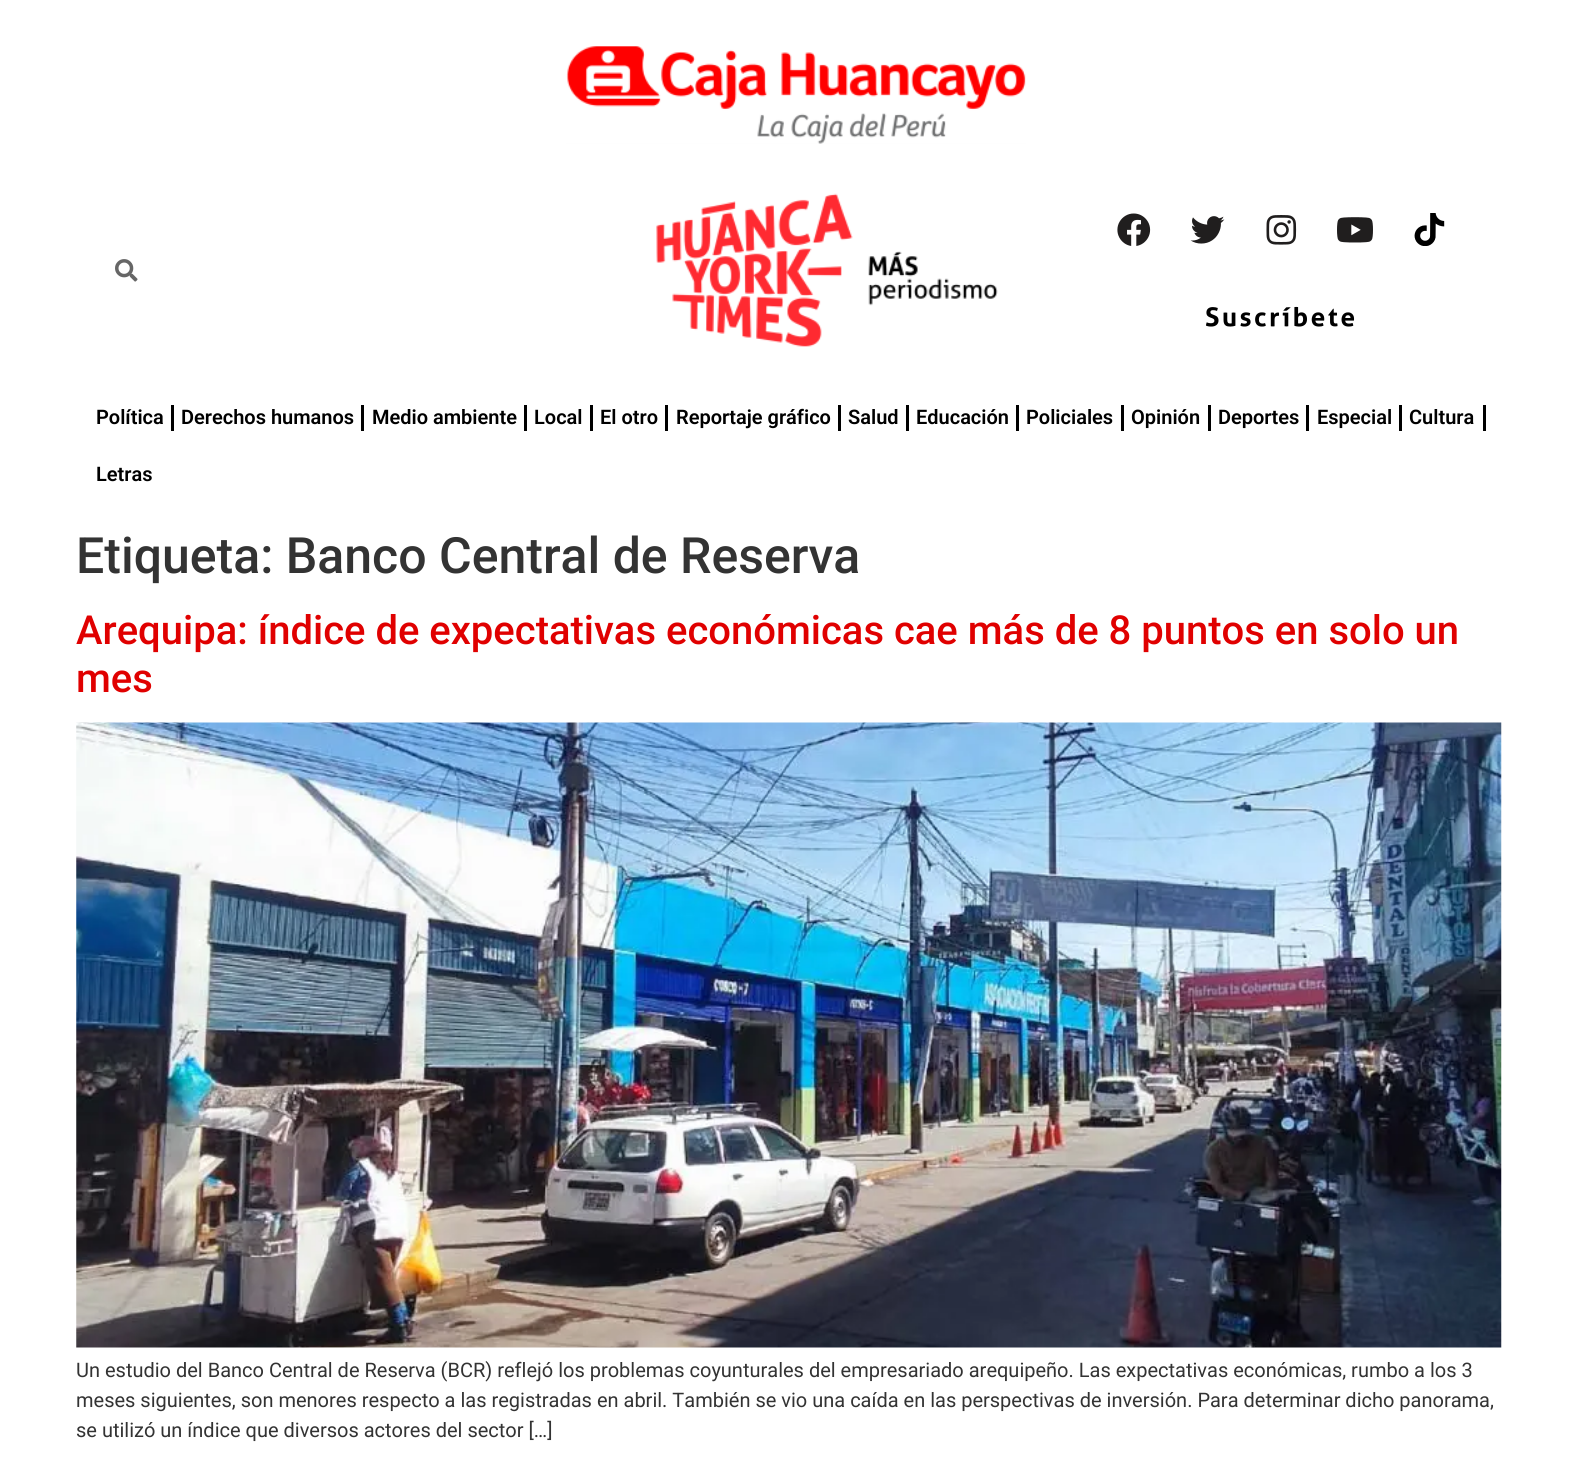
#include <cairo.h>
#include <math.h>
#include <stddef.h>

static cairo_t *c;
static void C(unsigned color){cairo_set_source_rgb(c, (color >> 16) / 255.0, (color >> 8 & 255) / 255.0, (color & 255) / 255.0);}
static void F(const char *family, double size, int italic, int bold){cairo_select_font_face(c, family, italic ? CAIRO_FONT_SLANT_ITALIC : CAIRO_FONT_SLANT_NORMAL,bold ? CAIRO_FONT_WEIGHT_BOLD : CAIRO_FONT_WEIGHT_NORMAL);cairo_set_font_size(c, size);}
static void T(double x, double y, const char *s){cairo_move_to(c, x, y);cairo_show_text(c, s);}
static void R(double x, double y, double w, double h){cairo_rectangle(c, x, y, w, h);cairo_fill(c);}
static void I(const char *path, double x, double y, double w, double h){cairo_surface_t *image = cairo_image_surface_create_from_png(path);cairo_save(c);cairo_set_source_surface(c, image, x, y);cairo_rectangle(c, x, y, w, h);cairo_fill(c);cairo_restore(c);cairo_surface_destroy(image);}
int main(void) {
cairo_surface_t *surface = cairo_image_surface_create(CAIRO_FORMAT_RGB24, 1576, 1464);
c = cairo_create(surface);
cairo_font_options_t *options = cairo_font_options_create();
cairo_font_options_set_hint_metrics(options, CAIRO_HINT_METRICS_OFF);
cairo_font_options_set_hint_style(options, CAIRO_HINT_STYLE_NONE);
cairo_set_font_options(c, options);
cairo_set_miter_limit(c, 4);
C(0xffffff);
cairo_paint(c);
I("1.png",566,46,460,98);
I("2.png",115,259,23,23);
I("3.png",656,193,342,154);
I("4.png",1117,213,34,33);
I("5.png",1190,216,35,28);
I("6.png",1266,215,31,30);
I("7.png",1337,217,36,26);
I("8.png",1414,213,31,33);
I("9.png",1206,306,149,21);
F("Roboto SemiBold",20,0,0);
C(0x000000);
T(96,424,"Política");
R(171,405,3,26);
T(181,424,"Derechos humanos");
R(361,405,3,26);
T(372,424,"Medio ambiente");
R(524,405,3,26);
T(534,424,"Local");
R(590,405,3,26);
T(600,424,"El otro");
R(665,405,3,26);
T(676,424,"Reportaje gráfico");
R(838,405,3,26);
T(848,424,"Salud");
R(906,405,3,26);
T(916,424,"Educación");
R(1016,405,3,26);
T(1026,424,"Policiales");
R(1121,405,3,26);
T(1131,424,"Opinión");
R(1208,405,3,26);
T(1218,424,"Deportes");
R(1306,405,3,26);
T(1317,424,"Especial");
R(1399,405,3,26);
T(1409,424,"Cultura");
R(1483,405,3,26);
T(96,481,"Letras");
F("Roboto Medium",50,0,0);
C(0x333333);
T(76,573,"Etiqueta: Banco Central de Reserva");
F("Roboto Medium",40,0,0);
C(0xe00000);
T(76,644,"Arequipa: índice de expectativas económicas cae más de 8 puntos en solo un");
T(76,692,"mes");
I("10.png",76,722,1426,626);
F("Roboto",20,0,0);
C(0x333333);
T(76,1377,"Un estudio del Banco Central de Reserva (BCR) reflejó los problemas coyunturales del empresariado arequipeño. Las expectativas económicas, rumbo a los 3");
T(76,1407,"meses siguientes, son menores respecto a las registradas en abril. También se vio una caída en las perspectivas de inversión. Para determinar dicho panorama,");
T(76,1437,"se utilizó un índice que diversos actores del sector […]");
cairo_surface_write_to_png(surface, "o.png");
cairo_font_options_destroy(options);
cairo_destroy(c);
cairo_surface_destroy(surface);
return 0;
}
